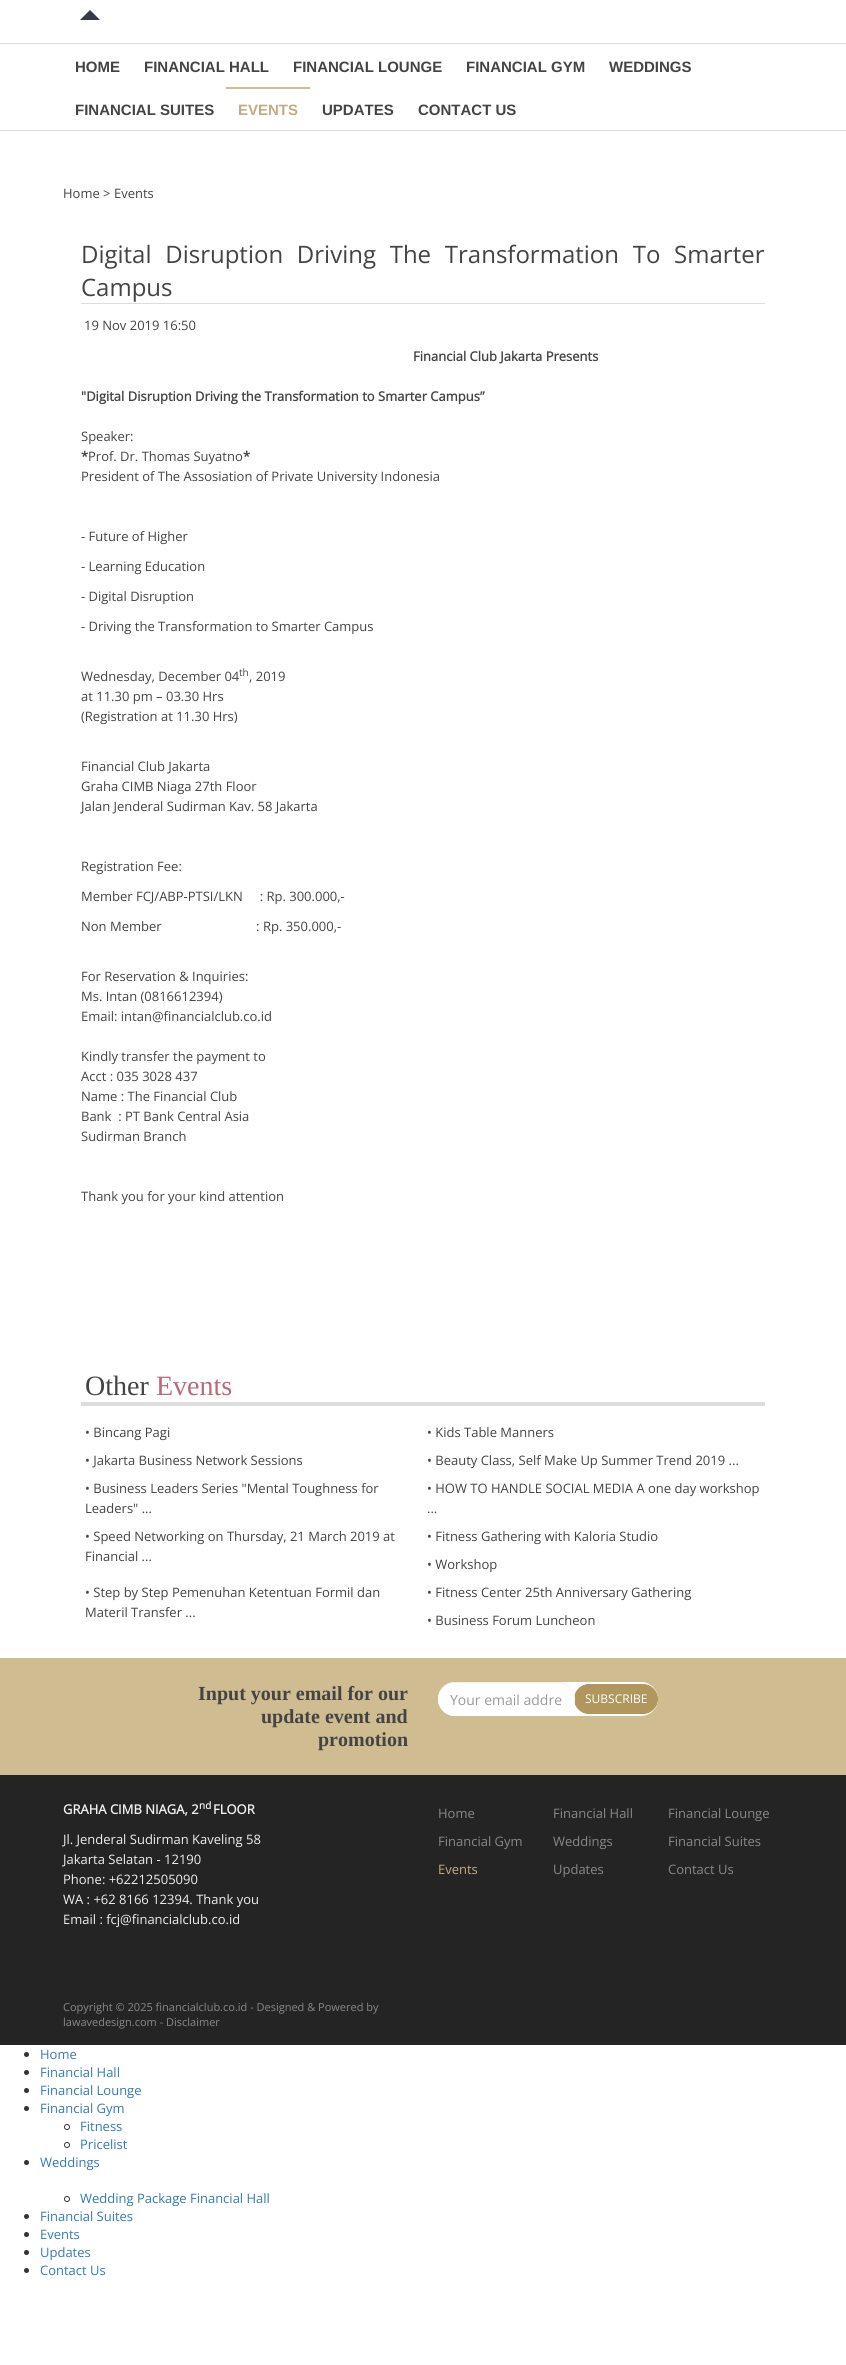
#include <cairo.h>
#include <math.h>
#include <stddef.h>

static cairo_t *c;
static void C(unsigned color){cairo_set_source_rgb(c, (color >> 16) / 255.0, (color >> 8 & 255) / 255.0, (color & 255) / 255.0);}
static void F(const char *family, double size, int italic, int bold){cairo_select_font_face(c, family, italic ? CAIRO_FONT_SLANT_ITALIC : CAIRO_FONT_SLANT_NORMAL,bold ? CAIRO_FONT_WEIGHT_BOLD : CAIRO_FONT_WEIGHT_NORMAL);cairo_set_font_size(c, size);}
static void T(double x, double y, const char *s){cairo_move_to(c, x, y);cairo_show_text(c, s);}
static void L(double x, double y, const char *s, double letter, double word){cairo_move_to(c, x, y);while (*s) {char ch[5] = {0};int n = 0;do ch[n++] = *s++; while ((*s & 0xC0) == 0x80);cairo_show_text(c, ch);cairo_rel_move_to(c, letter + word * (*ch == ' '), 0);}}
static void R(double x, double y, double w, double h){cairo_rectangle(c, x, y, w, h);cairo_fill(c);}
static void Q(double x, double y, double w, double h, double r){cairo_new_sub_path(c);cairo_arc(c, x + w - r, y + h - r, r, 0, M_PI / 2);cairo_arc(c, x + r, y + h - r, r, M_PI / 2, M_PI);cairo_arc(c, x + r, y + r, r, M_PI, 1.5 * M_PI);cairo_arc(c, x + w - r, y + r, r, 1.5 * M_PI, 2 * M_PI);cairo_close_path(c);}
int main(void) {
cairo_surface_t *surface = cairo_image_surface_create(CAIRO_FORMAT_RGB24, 846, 2365);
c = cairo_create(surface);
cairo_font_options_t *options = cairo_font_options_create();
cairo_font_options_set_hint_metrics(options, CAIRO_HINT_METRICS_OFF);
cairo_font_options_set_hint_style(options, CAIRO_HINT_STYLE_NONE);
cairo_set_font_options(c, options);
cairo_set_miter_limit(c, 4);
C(0xffffff);
cairo_paint(c);
cairo_rectangle(c,-.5,43.5,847,87);
C(0xdddddd);
cairo_set_line_width(c,1);
cairo_stroke(c);
F("Liberation Sans",15,0,1);
C(0x444444);
T(75,72,"HOME");
T(144,72,"FINANCIAL HALL");
T(293,72,"FINANCIAL LOUNGE");
T(466,72,"FINANCIAL GYM");
T(609,72,"WEDDINGS");
T(75,115,"FINANCIAL SUITES");
C(0xd0bc91);
R(226,87,84,2);
C(0xc2ad80);
T(238,115,"EVENTS");
C(0x444444);
T(322,115,"UPDATES");
T(418,115,"CONTACT US");
F("Open Sans",13,0,0);
T(63,198,"Home > Events");
C(0xdddddd);
R(81,303,684,1);
F("Open Sans",24,0,0);
C(0x444444);
L(81,263,"Digital Disruption Driving The Transformation To Smarter",0,7.5);
T(81,296,"Campus");
F("Open Sans",13,0,0);
T(84,330,"19 Nov 2019 16:50");
F("Open Sans",13,0,1);
T(413,361,"Financial Club Jakarta Presents");
T(81,401,"\"Digital Disruption Driving the Transformation to Smarter Campus”");
F("Open Sans",13,0,0);
T(81,441,"Speaker:");
F("Open Sans",13,0,1);
T(81,461,"*");
F("Open Sans",13,0,0);
T(88,461,"Prof. Dr. Thomas Suyatno");
F("Open Sans",13,0,1);
T(243,461,"*");
F("Open Sans",13,0,0);
T(81,481,"President of The Assosiation of Private University Indonesia");
T(81,541,"- Future of Higher");
T(81,571,"- Learning Education");
T(81,601,"- Digital Disruption");
T(81,631,"- Driving the Transformation to Smarter Campus");
T(81,681,"Wednesday, December 04");
F("Open Sans",10,0,0);
T(239,676,"th");
F("Open Sans",13,0,0);
T(249,681,", 2019");
T(81,701,"at 11.30 pm – 03.30 Hrs");
T(81,721,"(Registration at 11.30 Hrs)");
T(81,771,"Financial Club Jakarta");
T(81,791,"Graha CIMB Niaga 27th Floor");
T(81,811,"Jalan Jenderal Sudirman Kav. 58 Jakarta");
T(81,871,"Registration Fee:");
T(81,901,"Member FCJ/ABP-PTSI/LKN     : Rp. 300.000,-");
T(81,931,"Non Member                            : Rp. 350.000,-");
T(81,981,"For Reservation & Inquiries:");
T(81,1001,"Ms. Intan (0816612394)");
T(81,1021,"Email: intan@financialclub.co.id");
T(81,1061,"Kindly transfer the payment to");
T(81,1081,"Acct : 035 3028 437");
T(81,1101,"Name : The Financial Club");
T(81,1121,"Bank  : PT Bank Central Asia");
T(81,1141,"Sudirman Branch");
T(81,1201,"Thank you for your kind attention");
F("Liberation Serif",28,0,0);
T(85,1395,"Other");
C(0xb86a7c);
T(156,1395,"Events");
C(0xdddddd);
R(81,1402,684,4);
F("Open Sans",13,0,0);
C(0x444444);
T(85,1437,"• Bincang Pagi");
T(427,1437,"• Kids Table Manners");
T(85,1465,"• Jakarta Business Network Sessions");
T(427,1465,"• Beauty Class, Self Make Up Summer Trend 2019 ...");
T(85,1493,"• Business Leaders Series \"Mental Toughness for");
T(85,1513,"Leaders\" ...");
T(427,1493,"• HOW TO HANDLE SOCIAL MEDIA A one day workshop");
T(427,1513,"...");
T(85,1541,"• Speed Networking on Thursday, 21 March 2019 at");
T(85,1561,"Financial ...");
T(427,1541,"• Fitness Gathering with Kaloria Studio");
T(427,1569,"• Workshop");
T(85,1597,"• Step by Step Pemenuhan Ketentuan Formil dan");
T(85,1617,"Materil Transfer ...");
T(427,1597,"• Fitness Center 25th Anniversary Gathering");
T(427,1625,"• Business Forum Luncheon");
C(0xd0bc91);
R(0,1658,846,117);
F("Liberation Serif",20,0,1);
C(0x444444);
T(198,1700,"Input your email for our");
T(261,1723,"update event and");
T(318,1746,"promotion");
C(0xffffff);
Q(438,1682,220,34,17);
cairo_fill(c);
C(0xb1975e);
Q(574.5,1684.5,83,29,14.5);
cairo_fill_preserve(c);
cairo_stroke(c);
C(0xffffff);
Q(438,1682,137,34,17);
cairo_fill(c);
cairo_set_source_rgba(c,0,0,0,0.07);
cairo_new_path(c);
cairo_move_to(c,455,1683);
cairo_line_to(c,558,1683);
cairo_curve_to(c,567,1683,575,1691,575,1700);
cairo_line_to(c,575,1699);
cairo_curve_to(c,575,1690,567,1682,558,1682);
cairo_line_to(c,455,1682);
cairo_curve_to(c,446,1682,438,1690,438,1699);
cairo_line_to(c,438,1700);
cairo_curve_to(c,438,1691,446,1683,455,1683);
cairo_close_path(c);
cairo_fill(c);
F("Open Sans",14,0,0);
C(0x999999);
T(450,1705,"Your email addre");
F("Open Sans",12,0,0);
C(0xffffff);
T(585,1703,"SUBSCRIBE");
C(0x242425);
R(0,1775,846,270);
F("Open Sans",13,0,1);
C(0xeeeeee);
T(63,1814,"GRAHA CIMB NIAGA, 2");
F("Open Sans",10,0,1);
T(199,1809,"nd");
F("Open Sans",13,0,1);
T(213,1814,"FLOOR");
F("Open Sans",13,0,0);
T(63,1844,"Jl. Jenderal Sudirman Kaveling 58");
T(63,1864,"Jakarta Selatan - 12190");
T(63,1884,"Phone: +62212505090");
T(63,1904,"WA : +62 8166 12394. Thank you");
T(63,1924,"Email : fcj@financialclub.co.id");
C(0x888888);
T(438,1818,"Home");
T(553,1818,"Financial Hall");
T(668,1818,"Financial Lounge");
T(438,1846,"Financial Gym");
T(553,1846,"Weddings");
T(668,1846,"Financial Suites");
C(0xc2ad80);
T(438,1874,"Events");
C(0x888888);
T(553,1874,"Updates");
T(668,1874,"Contact Us");
F("Open Sans",11,0,0);
T(63,2011,"Copyright © 2025 financialclub.co.id - Designed & Powered by");
T(63,2026,"lawavedesign.com - Disclaimer");
C(0x333333);
cairo_new_path(c);
cairo_arc(c,26.5,2054.5,2.5,0,2 * M_PI);
cairo_fill(c);
F("Open Sans",13,0,0);
C(0x337ab7);
T(40,2059,"Home");
C(0x333333);
cairo_new_path(c);
cairo_arc(c,26.5,2072.5,2.5,0,2 * M_PI);
cairo_fill(c);
C(0x337ab7);
T(40,2077,"Financial Hall");
C(0x333333);
cairo_new_path(c);
cairo_arc(c,26.5,2090.5,2.5,0,2 * M_PI);
cairo_fill(c);
C(0x337ab7);
T(40,2095,"Financial Lounge");
C(0x333333);
cairo_new_path(c);
cairo_arc(c,26.5,2108.5,2.5,0,2 * M_PI);
cairo_fill(c);
C(0x337ab7);
T(40,2113,"Financial Gym");
cairo_new_path(c);
cairo_arc(c,67,2127,2.5,0,2 * M_PI);
C(0x333333);
cairo_stroke(c);
C(0x337ab7);
T(80,2131,"Fitness");
cairo_new_path(c);
cairo_arc(c,67,2145,2.5,0,2 * M_PI);
C(0x333333);
cairo_stroke(c);
C(0x337ab7);
T(80,2149,"Pricelist");
C(0x333333);
cairo_new_path(c);
cairo_arc(c,26.5,2162.5,2.5,0,2 * M_PI);
cairo_fill(c);
C(0x337ab7);
T(40,2167,"Weddings");
C(0x36394a);
cairo_new_path(c);
cairo_move_to(c,100,20);
cairo_line_to(c,80,20);
cairo_line_to(c,90,10);
cairo_close_path(c);
cairo_fill(c);
cairo_arc(c,67,2199,2.5,0,2 * M_PI);
C(0x333333);
cairo_stroke(c);
C(0x337ab7);
T(80,2203,"Wedding Package Financial Hall");
C(0x333333);
cairo_new_path(c);
cairo_arc(c,26.5,2216.5,2.5,0,2 * M_PI);
cairo_fill(c);
C(0x337ab7);
T(40,2221,"Financial Suites");
C(0x333333);
cairo_new_path(c);
cairo_arc(c,26.5,2234.5,2.5,0,2 * M_PI);
cairo_fill(c);
C(0x337ab7);
T(40,2239,"Events");
C(0x333333);
cairo_new_path(c);
cairo_arc(c,26.5,2252.5,2.5,0,2 * M_PI);
cairo_fill(c);
C(0x337ab7);
T(40,2257,"Updates");
C(0x333333);
cairo_new_path(c);
cairo_arc(c,26.5,2270.5,2.5,0,2 * M_PI);
cairo_fill(c);
C(0x337ab7);
T(40,2275,"Contact Us");
cairo_surface_write_to_png(surface, "o.png");
cairo_font_options_destroy(options);
cairo_destroy(c);
cairo_surface_destroy(surface);
return 0;
}
